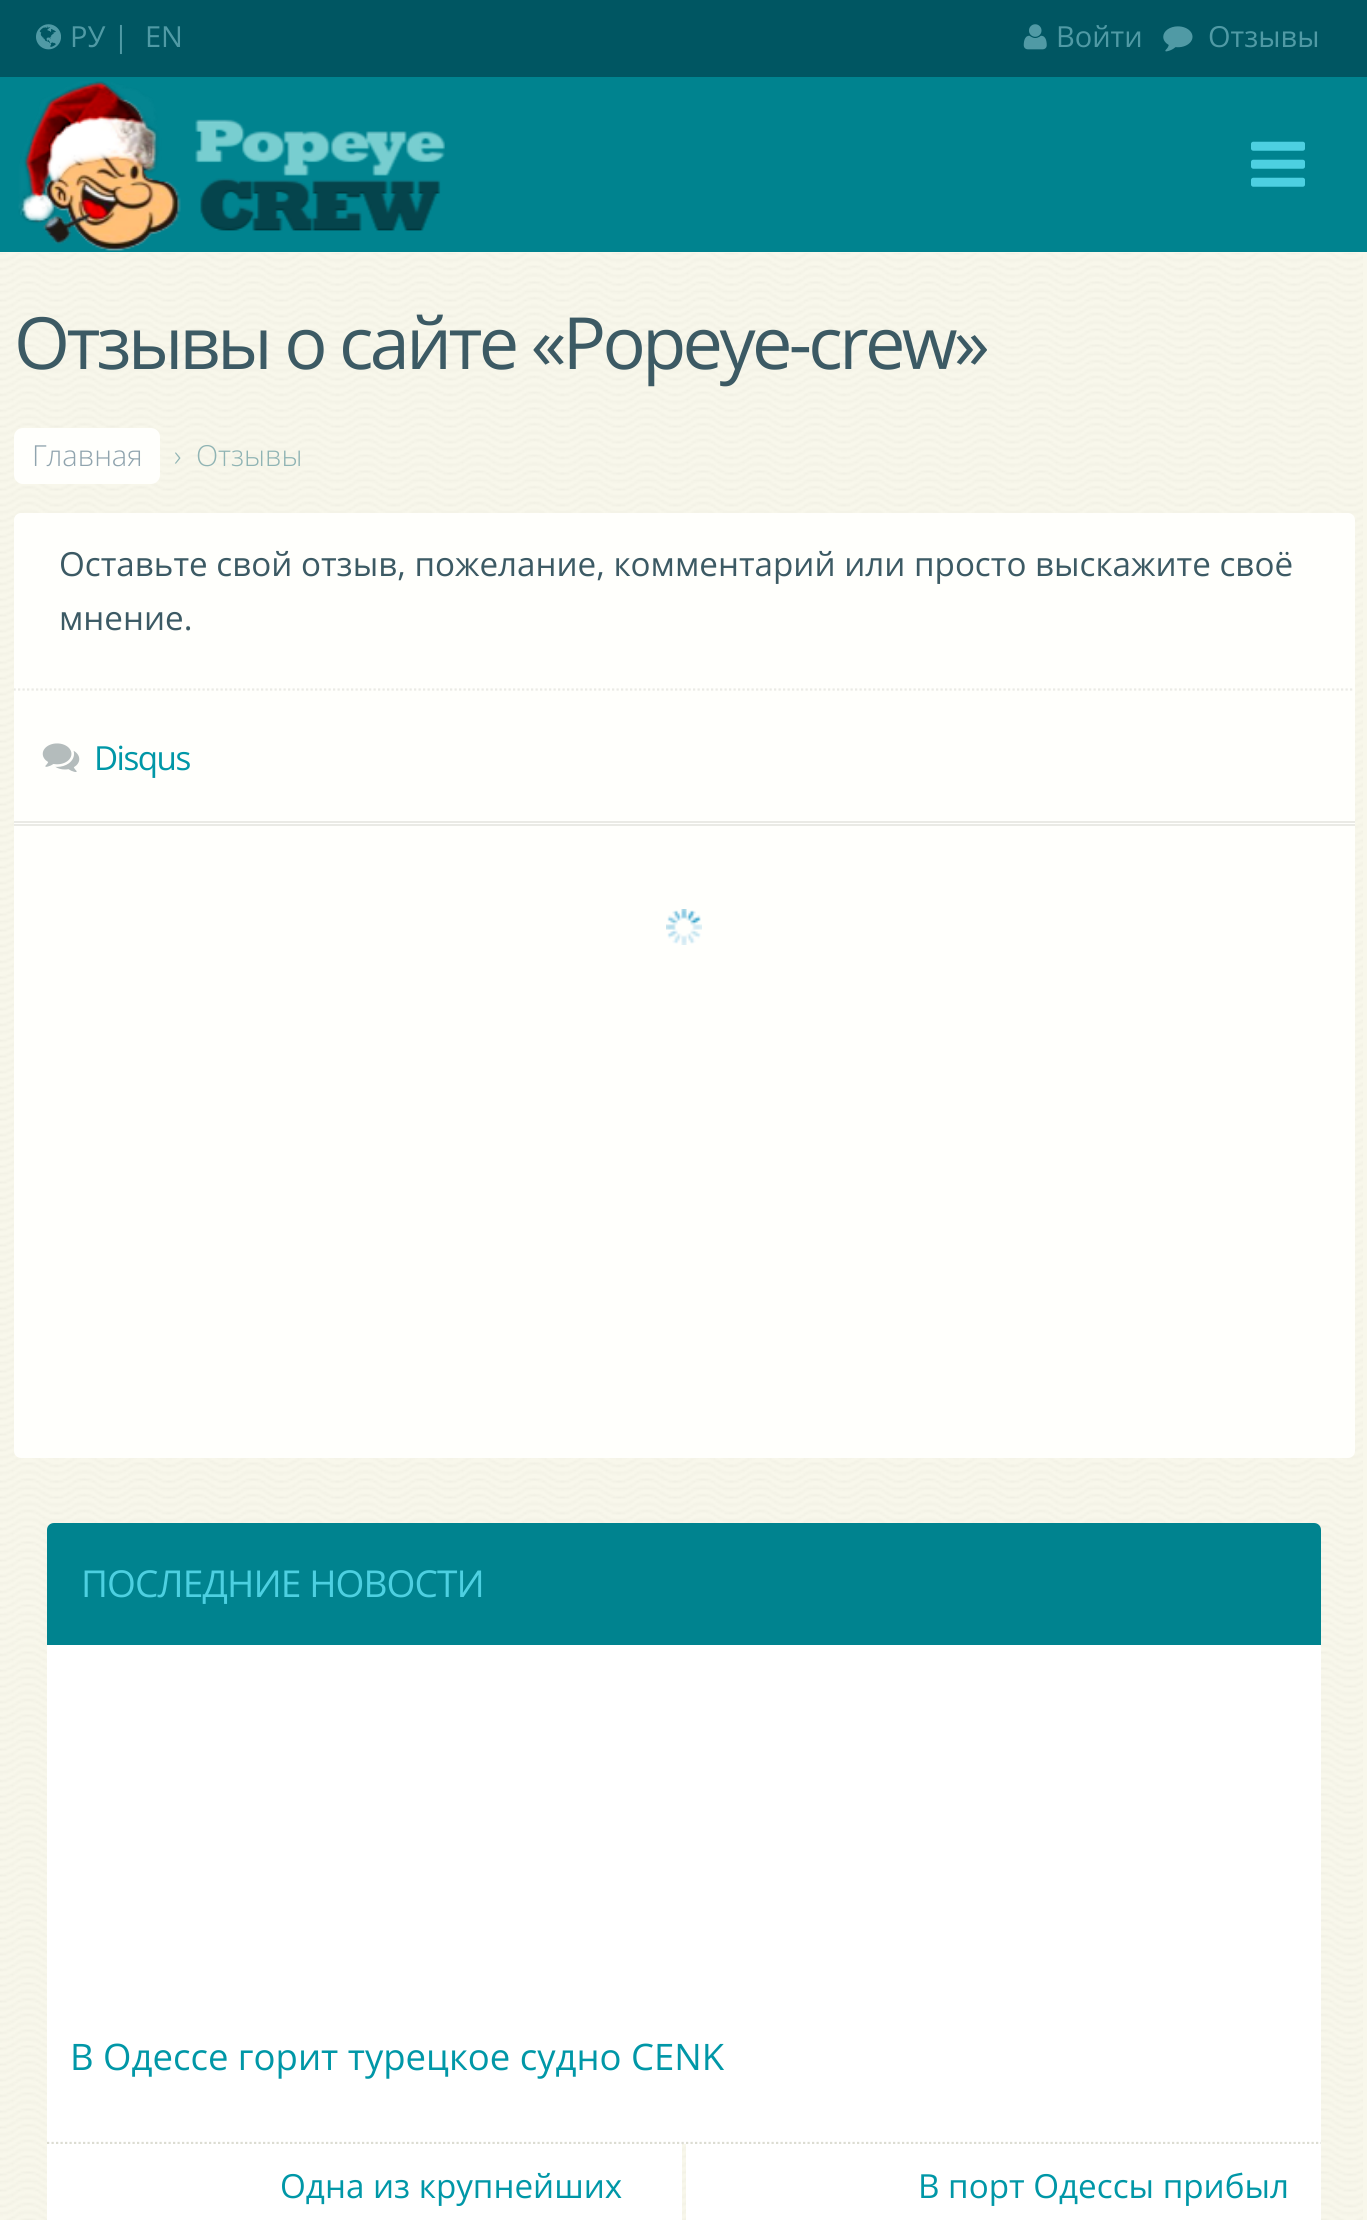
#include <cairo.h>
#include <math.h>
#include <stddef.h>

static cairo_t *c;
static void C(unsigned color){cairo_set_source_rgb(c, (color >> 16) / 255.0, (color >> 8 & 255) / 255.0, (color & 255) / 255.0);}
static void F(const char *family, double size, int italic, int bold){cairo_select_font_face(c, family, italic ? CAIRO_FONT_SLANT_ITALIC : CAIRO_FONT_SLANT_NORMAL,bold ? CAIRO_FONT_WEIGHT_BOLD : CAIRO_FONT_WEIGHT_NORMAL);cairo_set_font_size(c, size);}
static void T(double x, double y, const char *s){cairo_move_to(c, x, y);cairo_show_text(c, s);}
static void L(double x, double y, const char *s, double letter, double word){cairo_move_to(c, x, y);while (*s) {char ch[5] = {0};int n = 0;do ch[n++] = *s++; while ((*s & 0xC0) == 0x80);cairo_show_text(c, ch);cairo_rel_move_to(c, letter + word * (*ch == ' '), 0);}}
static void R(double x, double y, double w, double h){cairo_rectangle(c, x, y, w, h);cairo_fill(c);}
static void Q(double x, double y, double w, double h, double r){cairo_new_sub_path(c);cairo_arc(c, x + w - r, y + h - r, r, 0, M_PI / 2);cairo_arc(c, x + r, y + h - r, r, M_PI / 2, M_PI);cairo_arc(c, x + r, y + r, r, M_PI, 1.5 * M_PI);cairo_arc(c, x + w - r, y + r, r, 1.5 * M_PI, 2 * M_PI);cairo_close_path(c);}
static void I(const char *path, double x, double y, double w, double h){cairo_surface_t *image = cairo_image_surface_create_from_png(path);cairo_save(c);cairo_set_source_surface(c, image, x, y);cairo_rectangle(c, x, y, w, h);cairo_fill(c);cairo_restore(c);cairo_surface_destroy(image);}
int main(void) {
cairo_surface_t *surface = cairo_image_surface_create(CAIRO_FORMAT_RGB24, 1367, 2220);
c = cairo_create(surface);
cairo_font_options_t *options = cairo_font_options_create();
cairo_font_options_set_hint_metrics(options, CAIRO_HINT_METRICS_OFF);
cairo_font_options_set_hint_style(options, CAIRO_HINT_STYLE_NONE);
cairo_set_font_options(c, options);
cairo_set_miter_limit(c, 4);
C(0xf8f7eb);
cairo_paint(c);
I("1.png",0,253,1363,1967);
C(0x00838f);
R(0,77,1367,175);
C(0x005662);
R(0,0,1367,77);
I("2.png",18,81,427,170);
I("3.png",1251,141,54,46);
I("4.png",36,24,25,26);
F("Open Sans",29,0,0);
C(0x509aa5);
T(70,47,"РУ |");
T(145,47,"EN");
I("5.png",1023,24,24,26);
T(1056,47,"Войти");
I("6.png",1163,26,30,26);
T(1208,47,"Отзывы");
F("Open Sans",72,0,0);
C(0x3c5a64);
L(14,369,"Отзывы о сайте «Popeye-crew»",-3.6,0);
C(0xfffffc);
Q(14,428,146,56,9);
cairo_fill(c);
F("Open Sans Light",29,0,0);
C(0x90a4ae);
T(32,466,"Главная");
C(0x90b4b4);
L(174,466,"› Отзывы",0,7);
C(0xfffffc);
Q(14,513,1341,945,7);
cairo_fill(c);
F("Open Sans",33.2,0,0);
C(0x3c5a64);
T(59,576,"Оставьте свой отзыв, пожелание, комментарий или просто выскажите своё");
T(59,630,"мнение.");
cairo_save(c);
Q(14,513,1341,945,7);
cairo_clip(c);
cairo_new_path(c);
cairo_move_to(c,13.5,689.5);
cairo_line_to(c,1354.5,689.5);
C(0xeaeae5);
cairo_set_line_width(c,2.2);
cairo_set_dash(c,(double[]){2.25,2.25},2,0);
cairo_stroke(c);
cairo_restore(c);
I("7.png",42,743,38,29);
C(0x0097a7);
L(94,770,"Disqus",-1.5,0);
C(0xeaeae5);
R(14,821,1341,2);
R(14,824,1341,2);
I("8.png",666,909,36,36);
C(0x00838f);
cairo_new_path(c);
cairo_move_to(c,54,1523);
cairo_line_to(c,1314,1523);
cairo_curve_to(c,1318,1523,1321,1526,1321,1530);
cairo_line_to(c,1321,1645);
cairo_line_to(c,47,1645);
cairo_line_to(c,47,1530);
cairo_curve_to(c,47,1526,50,1523,54,1523);
cairo_close_path(c);
cairo_fill(c);
F("Open Sans",37.1,0,0);
C(0x4dd0e1);
L(81,1597,"ПОСЛЕДНИЕ НОВОСТИ",-.9,0);
C(0xffffff);
R(47,1645,1274,499);
cairo_save(c);
cairo_new_path(c);
cairo_move_to(c,54,1523);
cairo_line_to(c,1314,1523);
cairo_curve_to(c,1317.5,1523,1321,1526.5,1321,1530);
cairo_line_to(c,1321,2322);
cairo_curve_to(c,1321,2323,1317.5,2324,1314,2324);
cairo_line_to(c,54,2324);
cairo_curve_to(c,50.5,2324,47,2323,47,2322);
cairo_line_to(c,47,1530);
cairo_curve_to(c,47,1526.5,50.5,1523,54,1523);
cairo_close_path(c);
cairo_clip(c);
cairo_new_path(c);
cairo_move_to(c,47,2143);
cairo_line_to(c,1321,2143);
C(0xdcdcd2);
cairo_set_line_width(c,2.2);
cairo_set_dash(c,(double[]){2.25,2.25},2,0);
cairo_stroke(c);
cairo_restore(c);
F("Open Sans",36.5,0,0);
C(0x0097a7);
T(70,2070,"В Одессе горит турецкое судно CENK");
C(0xffffff);
cairo_new_path(c);
cairo_move_to(c,51,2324);
cairo_curve_to(c,49,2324,47,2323,47,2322);
cairo_line_to(c,47,2144);
cairo_line_to(c,682,2144);
cairo_line_to(c,682,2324);
cairo_close_path(c);
cairo_fill(c);
F("Open Sans",33.2,0,0);
C(0x0097a7);
T(280,2198,"Одна из крупнейших");
C(0xffffff);
cairo_new_path(c);
cairo_move_to(c,686,2144);
cairo_line_to(c,1321,2144);
cairo_line_to(c,1321,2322);
cairo_curve_to(c,1321,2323,1319,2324,1317,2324);
cairo_line_to(c,686,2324);
cairo_close_path(c);
cairo_fill(c);
C(0x0097a7);
T(918,2198,"В порт Одессы прибыл");
cairo_surface_write_to_png(surface, "o.png");
cairo_font_options_destroy(options);
cairo_destroy(c);
cairo_surface_destroy(surface);
return 0;
}
